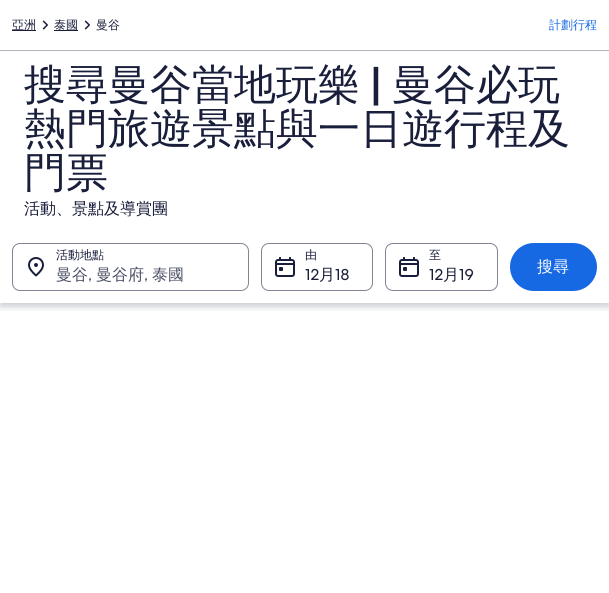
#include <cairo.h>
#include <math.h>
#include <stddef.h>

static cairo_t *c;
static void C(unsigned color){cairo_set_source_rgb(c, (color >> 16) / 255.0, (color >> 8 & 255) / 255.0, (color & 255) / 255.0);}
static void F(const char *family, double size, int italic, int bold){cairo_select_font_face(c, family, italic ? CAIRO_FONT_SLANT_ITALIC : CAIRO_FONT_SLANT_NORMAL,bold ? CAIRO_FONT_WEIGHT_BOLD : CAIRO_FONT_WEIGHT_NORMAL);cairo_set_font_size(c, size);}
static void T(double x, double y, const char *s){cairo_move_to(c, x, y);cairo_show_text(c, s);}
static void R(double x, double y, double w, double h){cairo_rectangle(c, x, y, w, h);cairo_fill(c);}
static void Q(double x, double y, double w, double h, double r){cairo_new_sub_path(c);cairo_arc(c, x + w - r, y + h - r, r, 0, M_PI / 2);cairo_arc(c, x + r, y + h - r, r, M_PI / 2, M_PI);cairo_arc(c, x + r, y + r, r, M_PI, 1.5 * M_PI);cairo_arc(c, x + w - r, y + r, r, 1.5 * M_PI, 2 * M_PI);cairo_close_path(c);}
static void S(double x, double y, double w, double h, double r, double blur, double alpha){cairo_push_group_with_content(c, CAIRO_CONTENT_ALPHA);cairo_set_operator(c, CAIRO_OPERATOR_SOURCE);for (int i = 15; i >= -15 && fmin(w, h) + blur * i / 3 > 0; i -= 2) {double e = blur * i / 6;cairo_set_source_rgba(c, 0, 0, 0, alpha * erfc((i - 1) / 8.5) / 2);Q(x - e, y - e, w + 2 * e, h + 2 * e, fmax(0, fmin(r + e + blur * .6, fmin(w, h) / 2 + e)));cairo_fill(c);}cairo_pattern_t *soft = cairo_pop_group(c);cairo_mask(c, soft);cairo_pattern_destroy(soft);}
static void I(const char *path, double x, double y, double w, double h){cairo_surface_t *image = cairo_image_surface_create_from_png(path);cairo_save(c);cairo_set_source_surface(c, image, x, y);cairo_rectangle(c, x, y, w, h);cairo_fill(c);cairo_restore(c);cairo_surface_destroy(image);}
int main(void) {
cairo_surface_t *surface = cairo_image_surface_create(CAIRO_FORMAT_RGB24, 609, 593);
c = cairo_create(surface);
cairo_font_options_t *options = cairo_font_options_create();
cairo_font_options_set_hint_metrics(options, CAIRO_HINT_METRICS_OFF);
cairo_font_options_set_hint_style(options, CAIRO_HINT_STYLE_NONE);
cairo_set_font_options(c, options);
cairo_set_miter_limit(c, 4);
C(0xffffff);
cairo_paint(c);
C(0xb1b3bd);
R(0,50,609,1);
C(0x191e3b);
R(12,30,24,1);
F("WenQuanYi Zen Hei Medium",12,0,0);
T(12,29,"亞洲");
I("1.png",42,20,6,10);
R(54,30,24,1);
T(54,29,"泰國");
I("1.png",84,20,6,10);
T(96,29,"曼谷");
C(0x1668e3);
T(549,29,"計劃行程");
cairo_save(c);
cairo_rectangle(c,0,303,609,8);
cairo_clip(c);
C(0x000b26);
S(0,55,609,252,0,3.5,.2);
cairo_restore(c);
F("WenQuanYi Zen Hei Medium",42,0,0);
C(0x191e3b);
T(24,99,"搜尋曼谷當地玩樂");
F("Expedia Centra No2 Medium",42,0,0);
T(370,99,"|");
F("WenQuanYi Zen Hei Medium",42,0,0);
T(392,99,"曼谷必玩");
T(24,143,"熱門旅遊景點與一日遊行程及");
T(24,187,"門票");
F("WenQuanYi Zen Hei Medium",16,0,0);
T(24,214,"活動、景點及導賞團");
Q(12.5,243.5,236,47,7.5);
C(0x818494);
cairo_set_line_width(c,1);
cairo_stroke(c);
F("WenQuanYi Zen Hei Medium",12,0,0);
C(0x191e3b);
T(56,259,"活動地點");
I("2.png",28,257,16,20);
F("WenQuanYi Zen Hei Medium",16,0,0);
C(0x4d5167);
T(56,280,"曼谷");
F("Expedia Centra No2",16,0,0);
T(88,280,",");
F("WenQuanYi Zen Hei Medium",16,0,0);
T(96,280,"曼谷府");
F("Expedia Centra No2",16,0,0);
T(144,280,",");
F("WenQuanYi Zen Hei Medium",16,0,0);
T(152,280,"泰國");
Q(261.5,243.5,111,47,7.5);
C(0x818494);
cairo_stroke(c);
F("WenQuanYi Zen Hei Medium",12,0,0);
C(0x191e3b);
T(305,259,"由");
I("3.png",275,257,20,20);
F("Expedia Centra No2",16,0,0);
T(305,280,"12");
F("WenQuanYi Zen Hei Medium",16,0,0);
T(319,280,"月");
F("Expedia Centra No2",16,0,0);
T(335,280,"18");
Q(385.5,243.5,112,47,7.5);
C(0x818494);
cairo_stroke(c);
F("WenQuanYi Zen Hei Medium",12,0,0);
C(0x191e3b);
T(429,259,"至");
I("3.png",399,257,20,20);
F("Expedia Centra No2",16,0,0);
T(429,280,"12");
F("WenQuanYi Zen Hei Medium",16,0,0);
T(443,280,"月");
F("Expedia Centra No2",16,0,0);
T(459,280,"19");
C(0x1668e3);
Q(510,243,87,48,24);
cairo_fill(c);
F("WenQuanYi Zen Hei Medium",16,0,0);
C(0xffffff);
T(537,272,"搜尋");
cairo_surface_write_to_png(surface, "o.png");
cairo_font_options_destroy(options);
cairo_destroy(c);
cairo_surface_destroy(surface);
return 0;
}
